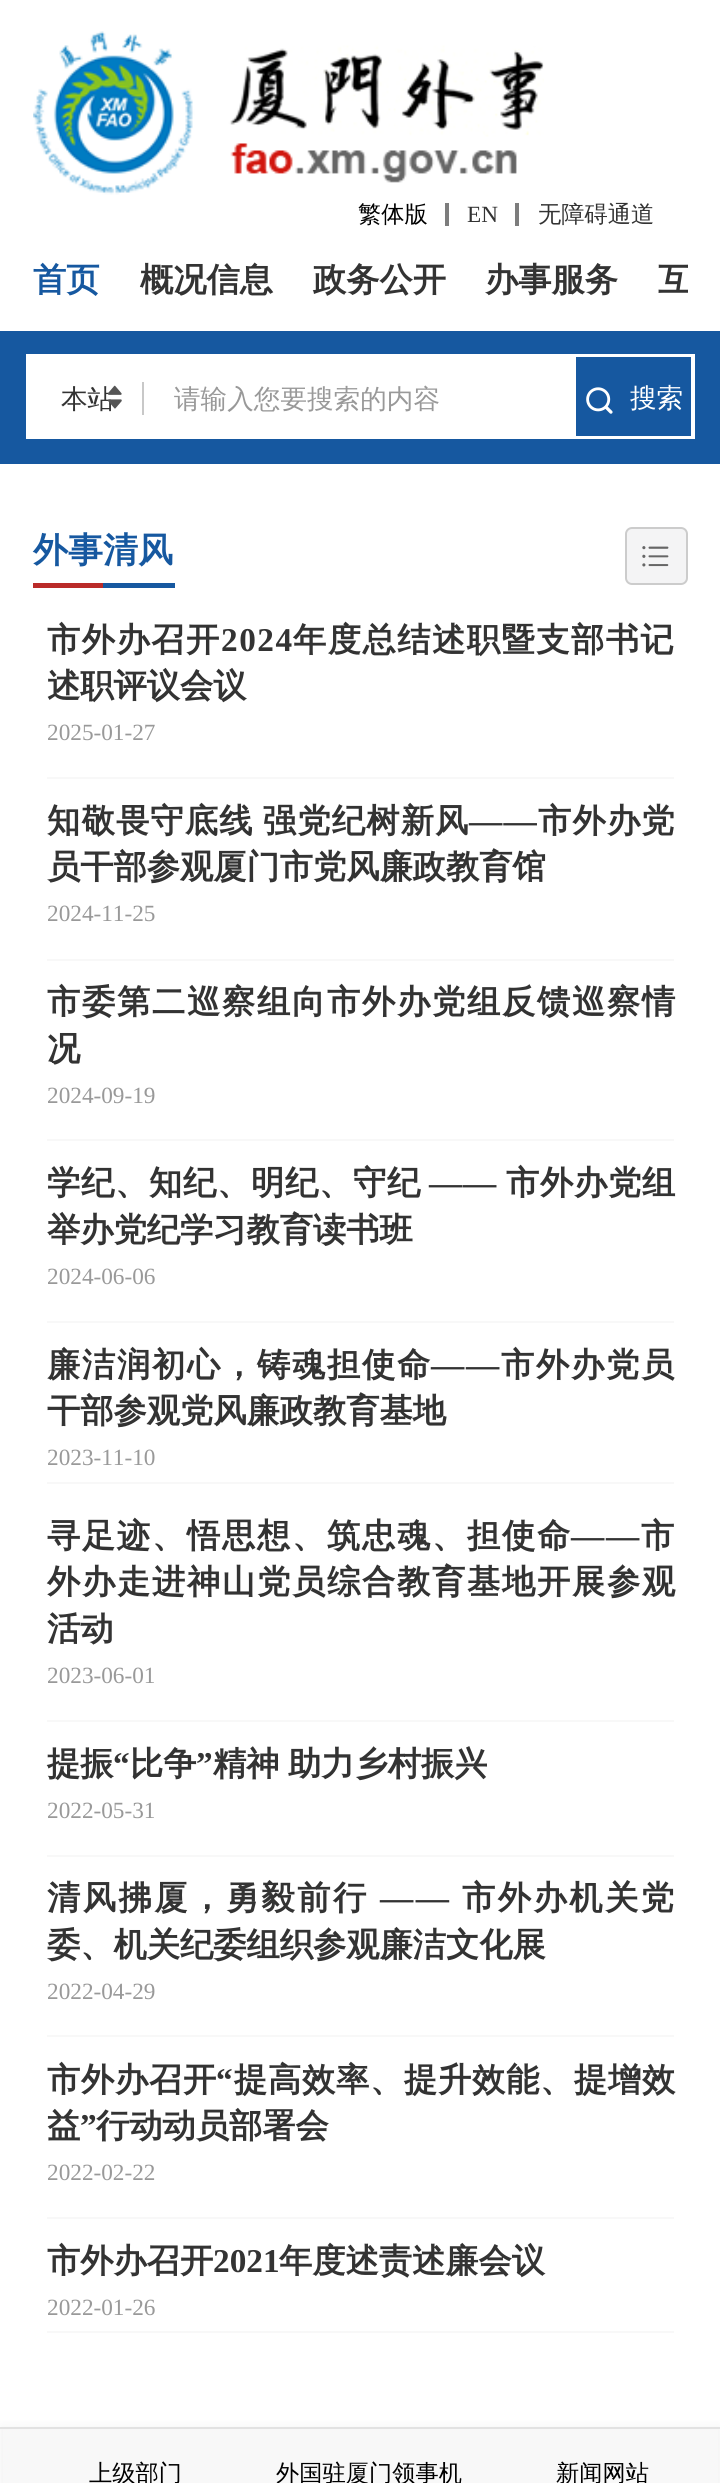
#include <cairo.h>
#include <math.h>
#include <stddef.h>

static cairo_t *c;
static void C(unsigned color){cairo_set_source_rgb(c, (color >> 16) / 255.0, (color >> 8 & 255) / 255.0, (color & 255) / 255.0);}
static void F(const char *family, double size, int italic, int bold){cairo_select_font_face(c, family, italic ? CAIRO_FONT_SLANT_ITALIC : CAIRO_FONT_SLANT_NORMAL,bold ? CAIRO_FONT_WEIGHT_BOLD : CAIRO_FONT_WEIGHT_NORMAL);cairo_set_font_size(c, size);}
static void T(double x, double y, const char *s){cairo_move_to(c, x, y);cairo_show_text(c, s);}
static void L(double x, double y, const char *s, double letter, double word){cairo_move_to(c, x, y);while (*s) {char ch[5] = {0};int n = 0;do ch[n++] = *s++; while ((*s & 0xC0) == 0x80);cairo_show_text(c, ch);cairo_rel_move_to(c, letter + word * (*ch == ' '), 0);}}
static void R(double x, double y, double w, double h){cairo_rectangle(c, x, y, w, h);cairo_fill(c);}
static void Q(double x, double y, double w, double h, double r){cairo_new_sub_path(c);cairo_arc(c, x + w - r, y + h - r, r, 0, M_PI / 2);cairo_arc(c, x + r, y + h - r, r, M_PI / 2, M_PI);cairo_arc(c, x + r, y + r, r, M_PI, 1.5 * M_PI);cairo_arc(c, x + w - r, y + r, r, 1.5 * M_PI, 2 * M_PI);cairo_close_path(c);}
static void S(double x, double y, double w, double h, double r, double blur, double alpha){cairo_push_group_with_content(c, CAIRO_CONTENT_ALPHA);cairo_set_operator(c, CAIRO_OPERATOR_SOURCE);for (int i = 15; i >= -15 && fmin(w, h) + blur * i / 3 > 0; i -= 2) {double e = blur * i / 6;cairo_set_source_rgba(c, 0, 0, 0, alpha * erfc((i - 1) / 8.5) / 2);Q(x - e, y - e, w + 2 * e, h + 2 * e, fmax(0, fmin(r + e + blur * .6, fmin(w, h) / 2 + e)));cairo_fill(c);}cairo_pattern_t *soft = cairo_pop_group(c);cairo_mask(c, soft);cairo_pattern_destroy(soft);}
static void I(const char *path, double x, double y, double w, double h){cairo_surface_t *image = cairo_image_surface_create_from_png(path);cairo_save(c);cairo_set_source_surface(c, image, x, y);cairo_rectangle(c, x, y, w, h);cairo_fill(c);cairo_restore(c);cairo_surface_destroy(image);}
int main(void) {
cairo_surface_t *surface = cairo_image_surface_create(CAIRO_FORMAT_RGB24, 720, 2483);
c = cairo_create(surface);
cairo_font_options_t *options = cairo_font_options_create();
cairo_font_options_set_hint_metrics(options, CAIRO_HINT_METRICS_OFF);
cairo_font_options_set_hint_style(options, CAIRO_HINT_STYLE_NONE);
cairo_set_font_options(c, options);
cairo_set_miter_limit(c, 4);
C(0xffffff);
cairo_paint(c);
I("1.png",33,31,511,164);
F("WenQuanYi Zen Hei Medium",23.25,0,0);
C(0x000000);
T(358,222,"繁体版");
C(0x7d7d7d);
R(445,203,4,23);
F("Liberation Serif",23.25,0,0);
C(0x333333);
T(467,222,"EN");
C(0x7d7d7d);
R(515,203,4,23);
F("WenQuanYi Zen Hei Medium",23.25,0,0);
C(0x333333);
T(538,222,"无障碍通道");
F("WenQuanYi Zen Hei",33.25,0,1);
C(0x1658a0);
T(33,291,"首页");
C(0x333333);
T(140,291,"概况信息");
T(313,291,"政务公开");
T(485,291,"办事服务");
cairo_save(c);
cairo_rectangle(c,33,231,655,100);
cairo_clip(c);
T(658,291,"互");
cairo_restore(c);
C(0x1658a0);
R(0,331,720,133);
C(0xffffff);
R(26,354,669,85);
F("WenQuanYi Zen Hei Medium",26.6,0,0);
C(0x333333);
T(61,408,"本站");
I("2.png",108,385,14,24);
C(0xc8c8c8);
R(142,382,2,33);
C(0x999999);
T(174,408,"请输入您要搜索的内容");
C(0x1658a0);
R(576,357,115,79);
I("3.png",586,387,27,27);
C(0xffffff);
T(630,407,"搜索");
F("WenQuanYi Zen Hei",35,0,1);
C(0x1658a0);
T(33,562,"外事清风");
C(0xba2b29);
R(33,583,70,5);
C(0x1658a0);
R(103,583,72,5);
C(0xf4f4f5);
Q(626,528,61,56,6);
cairo_fill_preserve(c);
C(0xcccccc);
cairo_stroke(c);
I("4.png",642,546,27,21);
C(0xf8f8f8);
R(47,777,627,2);
F("WenQuanYi Zen Hei",33.25,0,1);
C(0x333333);
L(47,651,"市外办召开",1.5,0);
F("Liberation Serif",33.25,0,1);
L(221,651,"2024",1.5,0);
F("WenQuanYi Zen Hei",33.25,0,1);
L(293,651,"年度总结述职暨支部书记",1.5,0);
T(47,697,"述职评议会议");
F("Liberation Serif",23.25,0,0);
C(0x999999);
T(47,740,"2025-01-27");
C(0xf8f8f8);
R(47,959,627,2);
F("WenQuanYi Zen Hei",33.25,0,1);
C(0x333333);
L(47,832,"知敬畏守底线 强党纪树新风",1.2,-2);
F("Liberation Serif",33.25,0,1);
L(469,832,"——",1.2,0);
F("WenQuanYi Zen Hei",33.25,0,1);
L(538,832,"市外办党",1.2,0);
T(47,878,"员干部参观厦门市党风廉政教育馆");
F("Liberation Serif",23.25,0,0);
C(0x999999);
T(47,921,"2024-11-25");
C(0xf8f8f8);
R(47,1139,627,2);
F("WenQuanYi Zen Hei",33.25,0,1);
C(0x333333);
L(47,1013,"市委第二巡察组向市外办党组反馈巡察情",1.75,0);
T(47,1060,"况");
F("Liberation Serif",23.25,0,0);
C(0x999999);
T(47,1103,"2024-09-19");
C(0xf8f8f8);
R(47,1321,627,2);
F("WenQuanYi Zen Hei",33.25,0,1);
C(0x333333);
L(47,1194,"学纪、知纪、明纪、守纪",.75,0);
F("Liberation Serif",33.25,0,1);
L(429,1194,"——",.75,0);
F("WenQuanYi Zen Hei",33.25,0,1);
L(506,1194,"市外办党组",.75,0);
T(47,1241,"举办党纪学习教育读书班");
F("Liberation Serif",23.25,0,0);
C(0x999999);
T(47,1284,"2024-06-06");
F("WenQuanYi Zen Hei",33.25,0,1);
C(0x333333);
L(47,1376,"廉洁润初心，铸魂担使命",1.75,0);
F("Liberation Serif",33.25,0,1);
L(431,1376,"——",1.75,0);
F("WenQuanYi Zen Hei",33.25,0,1);
L(501,1376,"市外办党员",1.75,0);
T(47,1422,"干部参观党风廉政教育基地");
F("Liberation Serif",23.25,0,0);
C(0x999999);
T(47,1465,"2023-11-10");
C(0xf8f8f8);
R(47,1482,627,2);
R(47,1720,627,2);
F("WenQuanYi Zen Hei",33.25,0,1);
C(0x333333);
L(47,1547,"寻足迹、悟思想、筑忠魂、担使命",1.75,0);
F("Liberation Serif",33.25,0,1);
L(571,1547,"——",1.75,0);
F("WenQuanYi Zen Hei",33.25,0,1);
L(641,1547,"市",1.75,0);
L(47,1593,"外办走进神山党员综合教育基地开展参观",1.75,0);
T(47,1640,"活动");
F("Liberation Serif",23.25,0,0);
C(0x999999);
T(47,1683,"2023-06-01");
C(0xf8f8f8);
R(47,1855,627,2);
F("WenQuanYi Zen Hei",33.25,0,1);
C(0x333333);
T(47,1775,"提振");
F("Liberation Serif",33.25,0,1);
T(113,1775,"“");
F("WenQuanYi Zen Hei",33.25,0,1);
T(130,1775,"比争");
F("Liberation Serif",33.25,0,1);
T(196,1775,"”");
F("WenQuanYi Zen Hei",33.25,0,1);
T(213,1775,"精神");
T(288,1775,"助力乡村振兴");
F("Liberation Serif",23.25,0,0);
C(0x999999);
T(47,1818,"2022-05-31");
C(0xf8f8f8);
R(47,2035,627,2);
F("WenQuanYi Zen Hei",33.25,0,1);
C(0x333333);
L(47,1909,"清风拂厦，勇毅前行",2.5,0);
F("Liberation Serif",33.25,0,1);
L(380,1909,"——",2.5,0);
F("WenQuanYi Zen Hei",33.25,0,1);
L(462,1909,"市外办机关党",2.5,0);
T(47,1956,"委、机关纪委组织参观廉洁文化展");
F("Liberation Serif",23.25,0,0);
C(0x999999);
T(47,1999,"2022-04-29");
C(0xf8f8f8);
R(47,2217,627,2);
F("WenQuanYi Zen Hei",33.25,0,1);
C(0x333333);
L(47,2091,"市外办召开",.75,0);
F("Liberation Serif",33.25,0,1);
L(216,2091,"“",.75,0);
F("WenQuanYi Zen Hei",33.25,0,1);
L(234,2091,"提高效率、提升效能、提增效",.75,0);
T(47,2137,"益");
F("Liberation Serif",33.25,0,1);
T(80,2137,"”");
F("WenQuanYi Zen Hei",33.25,0,1);
T(96,2137,"行动动员部署会");
F("Liberation Serif",23.25,0,0);
C(0x999999);
T(47,2180,"2022-02-22");
F("WenQuanYi Zen Hei",33.25,0,1);
C(0x333333);
T(47,2272,"市外办召开");
F("Liberation Serif",33.25,0,1);
T(213,2272,"2021");
F("WenQuanYi Zen Hei",33.25,0,1);
T(279,2272,"年度述责述廉会议");
F("Liberation Serif",23.25,0,0);
C(0x999999);
T(47,2315,"2022-01-26");
C(0xf8f8f8);
R(47,2331,627,2);
C(0x000000);
S(0,2427,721,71,0,5,.05);
C(0xf8f8f8);
R(3,2430,715,53);
C(0xe2e2e2);
R(0,2427,720,2);
F("WenQuanYi Zen Hei Medium",23.25,0,0);
C(0x000000);
T(89,2481,"上级部门");
T(276,2481,"外国驻厦门领事机");
T(556,2481,"新闻网站");
cairo_surface_write_to_png(surface, "o.png");
cairo_font_options_destroy(options);
cairo_destroy(c);
cairo_surface_destroy(surface);
return 0;
}
